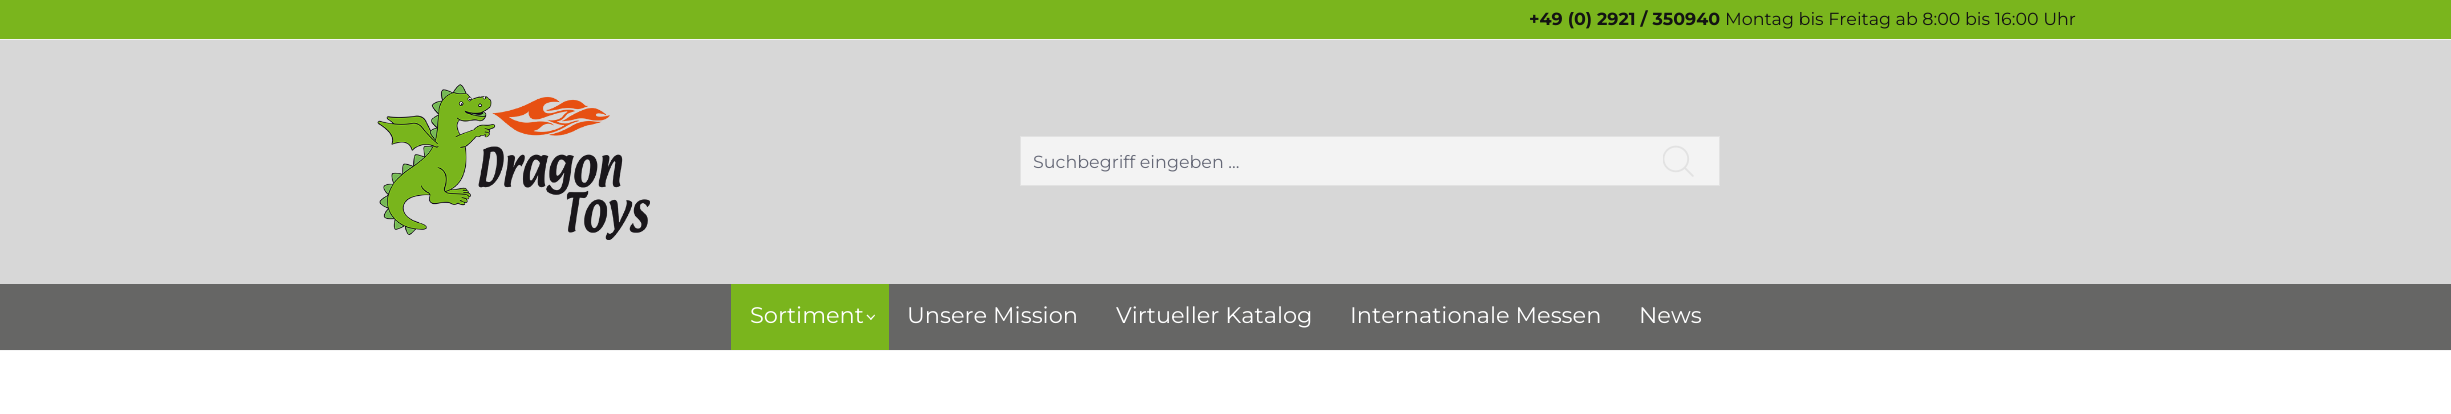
#include <cairo.h>
#include <math.h>
#include <stddef.h>

static cairo_t *c;
static void C(unsigned color){cairo_set_source_rgb(c, (color >> 16) / 255.0, (color >> 8 & 255) / 255.0, (color & 255) / 255.0);}
static void F(const char *family, double size, int italic, int bold){cairo_select_font_face(c, family, italic ? CAIRO_FONT_SLANT_ITALIC : CAIRO_FONT_SLANT_NORMAL,bold ? CAIRO_FONT_WEIGHT_BOLD : CAIRO_FONT_WEIGHT_NORMAL);cairo_set_font_size(c, size);}
static void T(double x, double y, const char *s){cairo_move_to(c, x, y);cairo_show_text(c, s);}
static void R(double x, double y, double w, double h){cairo_rectangle(c, x, y, w, h);cairo_fill(c);}
static void I(const char *path, double x, double y, double w, double h){cairo_surface_t *image = cairo_image_surface_create_from_png(path);cairo_save(c);cairo_set_source_surface(c, image, x, y);cairo_rectangle(c, x, y, w, h);cairo_fill(c);cairo_restore(c);cairo_surface_destroy(image);}
int main(void) {
cairo_surface_t *surface = cairo_image_surface_create(CAIRO_FORMAT_RGB24, 2451, 414);
c = cairo_create(surface);
cairo_font_options_t *options = cairo_font_options_create();
cairo_font_options_set_hint_metrics(options, CAIRO_HINT_METRICS_OFF);
cairo_font_options_set_hint_style(options, CAIRO_HINT_STYLE_NONE);
cairo_set_font_options(c, options);
cairo_set_miter_limit(c, 4);
C(0xffffff);
cairo_paint(c);
C(0xd7d7d7);
R(0,40,2451,244);
C(0x7ab51d);
R(0,0,2451,39);
C(0xf4f4f4);
R(0,39,2451,1);
F("Montserrat Thin",17.5,0,0);
C(0x131313);
T(1529,25,"+49 (0) 2921 / 350940");
F("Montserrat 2 Thin",17.5,0,0);
T(1725,25,"Montag bis Freitag ab 8:00 bis 16:00 Uhr");
I("1.png",377,84,273,156);
C(0xf3f3f3);
cairo_rectangle(c,1020.5,136.5,618,49);
cairo_fill_preserve(c);
C(0xe2e2e2);
cairo_set_line_width(c,1);
cairo_stroke(c);
C(0x666977);
T(1033,168,"Suchbegriff eingeben ...");
C(0xf3f3f3);
R(1638,137,81,48);
C(0xe2e2e2);
R(1638,136,82,1);
R(1719,136,1,50);
R(1638,185,82,1);
I("2.png",1663,145,31,32);
C(0x666665);
R(0,284,2451,66);
C(0x7ab51d);
R(731,284,158,66);
F("Montserrat 2 Thin",22.5,0,0);
C(0xffffff);
T(750,323,"Sortiment");
cairo_new_path(c);
cairo_move_to(c,874.5,314.5);
cairo_line_to(c,875,315.5);
cairo_line_to(c,871,320);
cairo_line_to(c,870,319);
cairo_close_path(c);
cairo_fill(c);
cairo_new_path(c);
cairo_move_to(c,867.5,314.5);
cairo_line_to(c,871.5,319);
cairo_line_to(c,871,320);
cairo_line_to(c,866.5,315.5);
cairo_close_path(c);
cairo_fill(c);
T(907,323,"Unsere Mission");
T(1116,323,"Virtueller Katalog");
T(1350,323,"Internationale Messen");
T(1639,323,"News");
C(0xf4f4f4);
R(0,350,2451,1);
cairo_surface_write_to_png(surface, "o.png");
cairo_font_options_destroy(options);
cairo_destroy(c);
cairo_surface_destroy(surface);
return 0;
}
